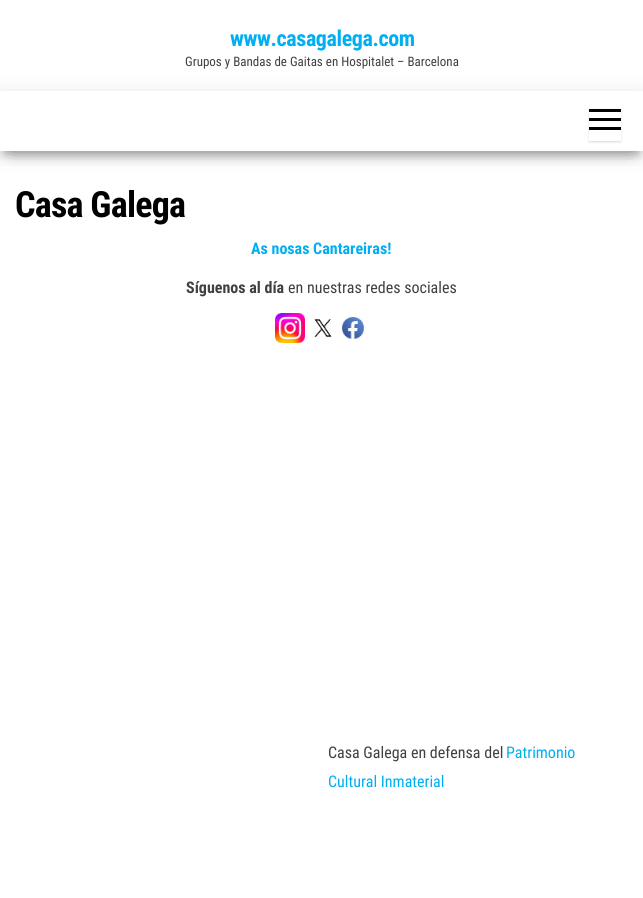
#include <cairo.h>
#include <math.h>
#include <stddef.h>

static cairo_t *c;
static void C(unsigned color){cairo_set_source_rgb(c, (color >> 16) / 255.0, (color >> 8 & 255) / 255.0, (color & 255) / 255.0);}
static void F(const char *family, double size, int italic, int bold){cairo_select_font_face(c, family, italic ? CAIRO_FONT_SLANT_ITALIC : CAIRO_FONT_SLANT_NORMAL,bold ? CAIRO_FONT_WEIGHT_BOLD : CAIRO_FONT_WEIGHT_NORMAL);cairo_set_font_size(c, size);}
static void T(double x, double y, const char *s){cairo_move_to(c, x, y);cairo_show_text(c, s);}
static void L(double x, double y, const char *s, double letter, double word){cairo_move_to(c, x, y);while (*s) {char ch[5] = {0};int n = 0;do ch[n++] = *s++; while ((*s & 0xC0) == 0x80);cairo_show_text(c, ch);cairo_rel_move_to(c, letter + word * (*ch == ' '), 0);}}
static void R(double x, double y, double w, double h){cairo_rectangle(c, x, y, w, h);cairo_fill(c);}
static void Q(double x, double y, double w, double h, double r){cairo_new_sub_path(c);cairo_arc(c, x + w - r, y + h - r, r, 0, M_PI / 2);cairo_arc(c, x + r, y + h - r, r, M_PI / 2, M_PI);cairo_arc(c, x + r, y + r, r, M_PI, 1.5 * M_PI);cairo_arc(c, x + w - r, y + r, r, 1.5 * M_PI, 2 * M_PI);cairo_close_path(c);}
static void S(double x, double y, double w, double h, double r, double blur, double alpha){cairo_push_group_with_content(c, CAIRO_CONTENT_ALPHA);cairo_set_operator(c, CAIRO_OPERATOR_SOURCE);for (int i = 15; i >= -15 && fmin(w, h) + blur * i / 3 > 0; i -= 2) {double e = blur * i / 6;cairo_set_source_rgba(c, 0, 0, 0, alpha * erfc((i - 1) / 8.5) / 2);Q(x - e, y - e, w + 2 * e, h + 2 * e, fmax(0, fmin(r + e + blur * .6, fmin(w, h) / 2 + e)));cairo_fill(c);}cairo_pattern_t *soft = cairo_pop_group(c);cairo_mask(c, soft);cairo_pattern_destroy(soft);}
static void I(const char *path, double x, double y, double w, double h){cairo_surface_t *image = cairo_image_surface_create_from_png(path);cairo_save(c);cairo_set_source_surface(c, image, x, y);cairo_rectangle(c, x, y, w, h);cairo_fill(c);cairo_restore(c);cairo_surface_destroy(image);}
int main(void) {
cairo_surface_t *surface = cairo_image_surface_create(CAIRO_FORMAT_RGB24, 643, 898);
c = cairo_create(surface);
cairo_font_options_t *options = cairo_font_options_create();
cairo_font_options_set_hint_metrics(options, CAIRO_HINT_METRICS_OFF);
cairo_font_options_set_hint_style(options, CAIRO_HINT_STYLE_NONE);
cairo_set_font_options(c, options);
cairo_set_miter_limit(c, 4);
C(0xffffff);
cairo_paint(c);
F("Roboto Condensed",22,0,1);
C(0x00aff2);
L(230,46,"www.casagalega.com",-.4,0);
cairo_save(c);
cairo_set_fill_rule(c,CAIRO_FILL_RULE_EVEN_ODD);
cairo_new_path(c);
cairo_move_to(c,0,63);
cairo_line_to(c,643,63);
cairo_line_to(c,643,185);
cairo_line_to(c,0,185);
cairo_close_path(c);
cairo_move_to(c,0,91);
cairo_line_to(c,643,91);
cairo_line_to(c,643,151);
cairo_line_to(c,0,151);
cairo_close_path(c);
cairo_clip(c);
C(0x000000);
S(0,94,643,60,0,10,.12);
cairo_restore(c);
F("Roboto Condensed",13,0,0);
C(0x404040);
T(185,66,"Grupos y Bandas de Gaitas en Hospitalet – Barcelona");
cairo_save(c);
cairo_rectangle(c,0,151,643,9);
cairo_clip(c);
C(0x000000);
S(5,104,633,50,0,5,.2);
cairo_restore(c);
cairo_save(c);
cairo_rectangle(c,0,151,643,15);
cairo_clip(c);
C(0x000000);
S(12,113,619,36,0,10,.42);
cairo_restore(c);
cairo_save(c);
cairo_set_fill_rule(c,CAIRO_FILL_RULE_EVEN_ODD);
cairo_new_path(c);
cairo_move_to(c,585,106);
cairo_line_to(c,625,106);
cairo_line_to(c,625,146);
cairo_line_to(c,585,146);
cairo_close_path(c);
cairo_move_to(c,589,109);
cairo_line_to(c,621,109);
cairo_line_to(c,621,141);
cairo_line_to(c,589,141);
cairo_close_path(c);
cairo_clip(c);
C(0x000000);
S(589,110,32,32,0,1,.15);
cairo_restore(c);
C(0x000000);
R(589,109,32,3);
R(589,118,32,3);
R(589,127,32,3);
F("Roboto Condensed",36,0,1);
L(15,217,"Casa Galega",-.75,0);
F("Roboto Condensed",16,0,1);
C(0x00aff2);
T(251,254,"As nosas Cantareiras!");
C(0x404040);
T(186,293,"Síguenos al día");
F("Roboto Condensed",16,0,0);
T(288,293,"en nuestras redes sociales");
I("1.png",275,313,30,30);
I("2.png",314,319,18,18);
I("3.png",341,316,24,24);
T(328,758,"Casa Galega en defensa del");
C(0x00aff2);
T(506,758,"Patrimonio");
T(328,787,"Cultural Inmaterial");
cairo_surface_write_to_png(surface, "o.png");
cairo_font_options_destroy(options);
cairo_destroy(c);
cairo_surface_destroy(surface);
return 0;
}
